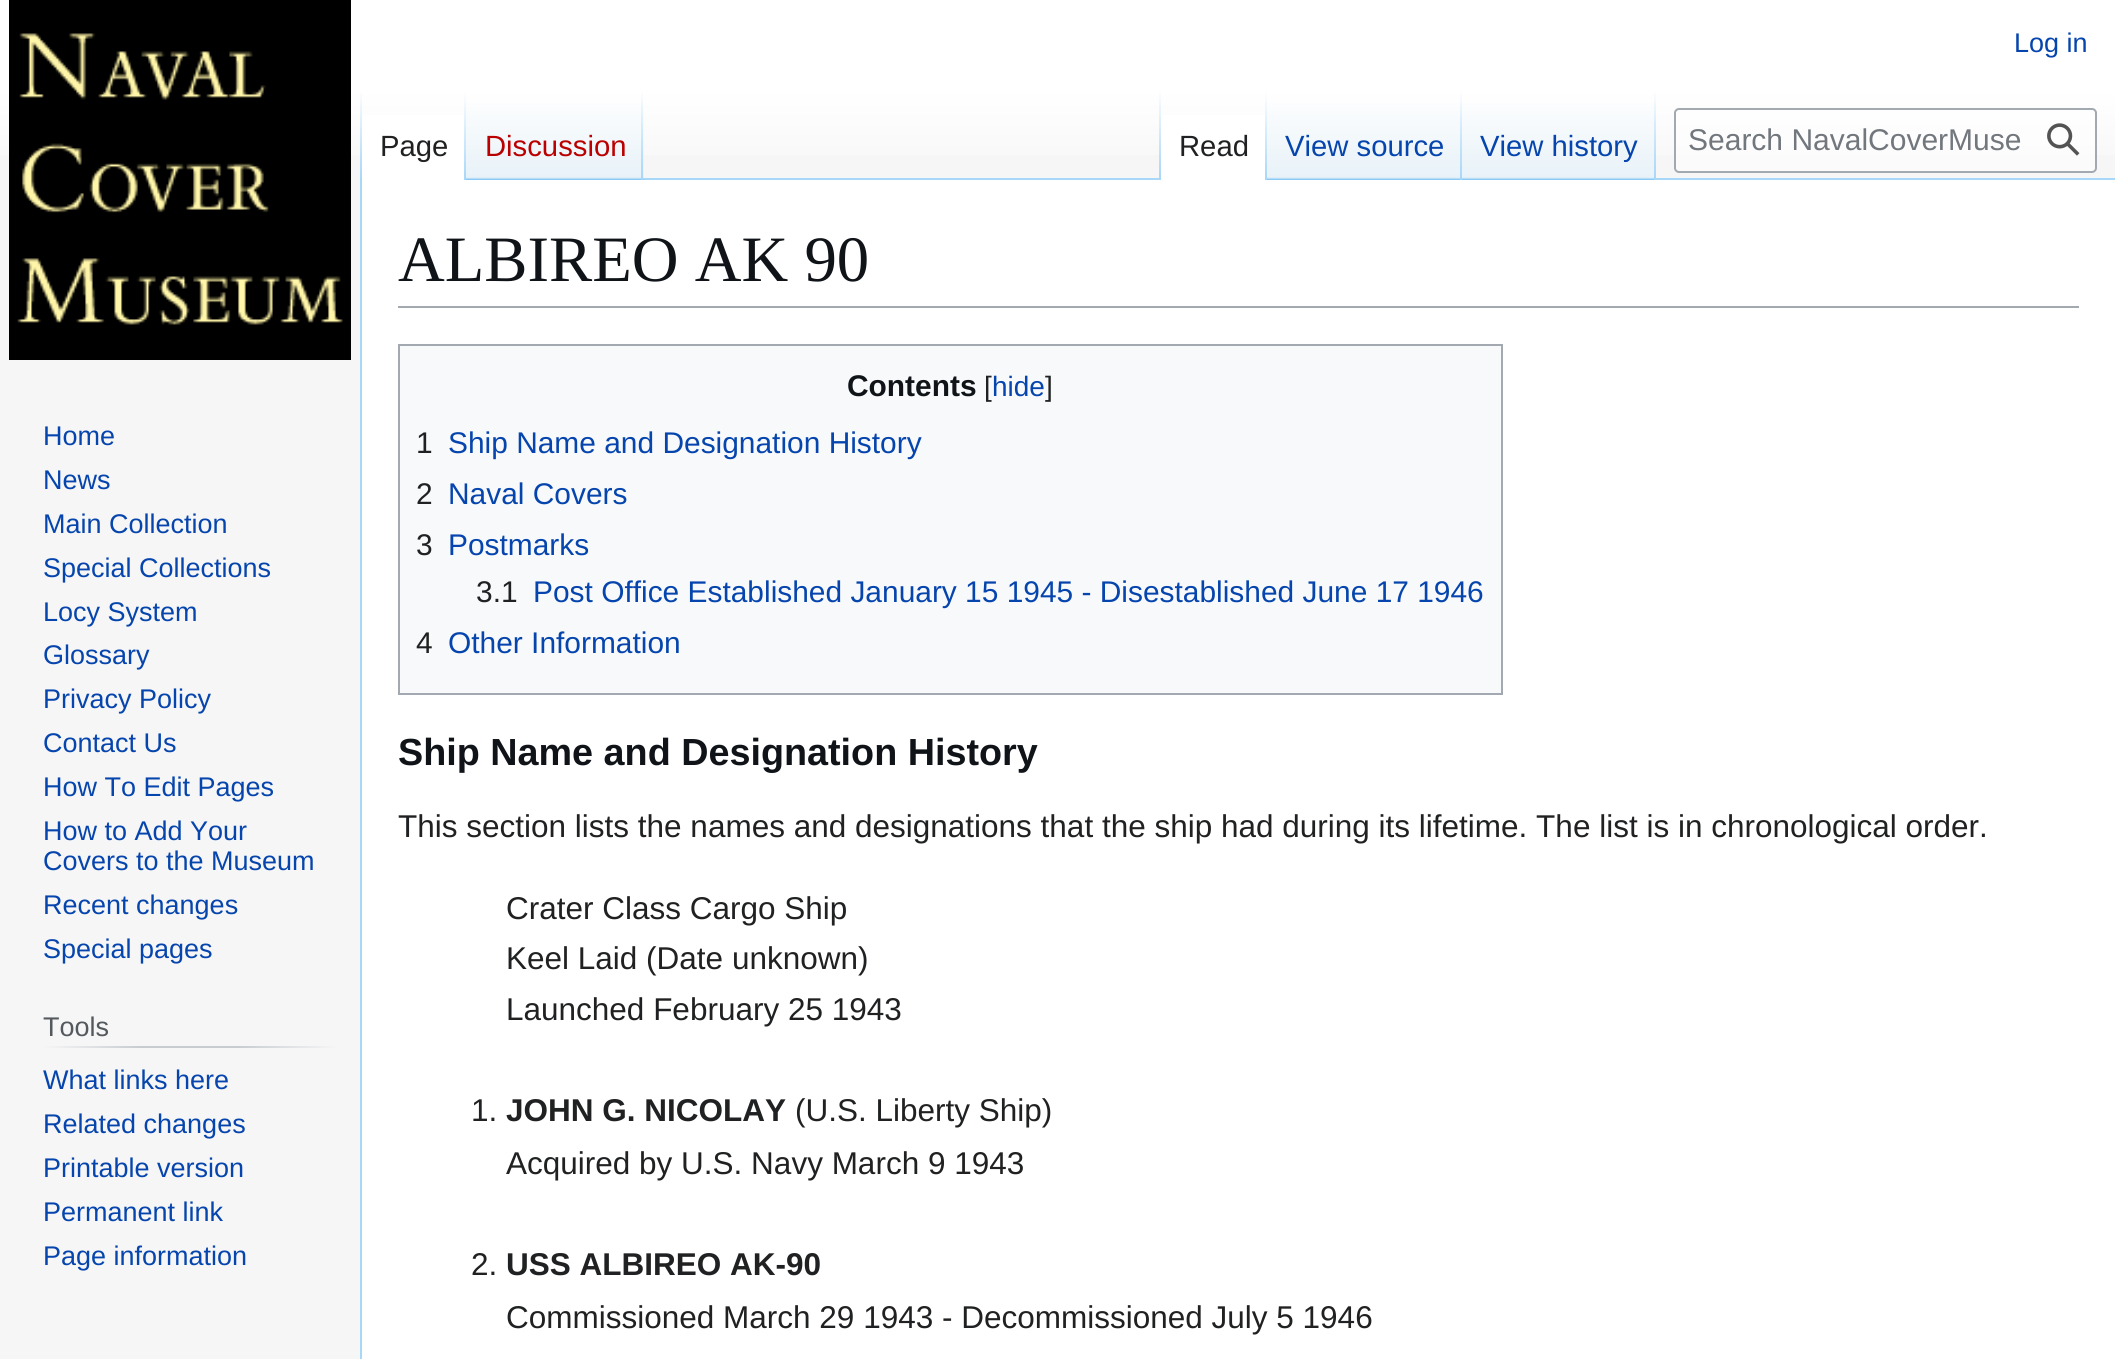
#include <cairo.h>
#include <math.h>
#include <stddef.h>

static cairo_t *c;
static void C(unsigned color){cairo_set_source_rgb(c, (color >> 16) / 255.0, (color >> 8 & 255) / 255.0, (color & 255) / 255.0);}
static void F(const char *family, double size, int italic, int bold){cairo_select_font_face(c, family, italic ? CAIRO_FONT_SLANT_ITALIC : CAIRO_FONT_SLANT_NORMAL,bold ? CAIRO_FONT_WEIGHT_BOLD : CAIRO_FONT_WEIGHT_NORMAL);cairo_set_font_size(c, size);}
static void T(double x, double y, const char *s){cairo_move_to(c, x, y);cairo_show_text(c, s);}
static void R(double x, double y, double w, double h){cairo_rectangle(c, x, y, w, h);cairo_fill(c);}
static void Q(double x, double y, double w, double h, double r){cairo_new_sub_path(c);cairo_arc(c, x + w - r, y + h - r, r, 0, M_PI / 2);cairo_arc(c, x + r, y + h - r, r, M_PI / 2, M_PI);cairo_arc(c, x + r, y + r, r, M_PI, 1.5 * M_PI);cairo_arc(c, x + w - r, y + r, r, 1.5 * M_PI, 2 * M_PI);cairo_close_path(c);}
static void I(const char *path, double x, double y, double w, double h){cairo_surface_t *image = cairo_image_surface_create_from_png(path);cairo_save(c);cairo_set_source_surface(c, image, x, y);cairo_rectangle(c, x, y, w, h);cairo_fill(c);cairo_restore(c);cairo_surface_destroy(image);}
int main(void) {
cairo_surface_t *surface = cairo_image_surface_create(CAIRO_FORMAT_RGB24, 2115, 1359);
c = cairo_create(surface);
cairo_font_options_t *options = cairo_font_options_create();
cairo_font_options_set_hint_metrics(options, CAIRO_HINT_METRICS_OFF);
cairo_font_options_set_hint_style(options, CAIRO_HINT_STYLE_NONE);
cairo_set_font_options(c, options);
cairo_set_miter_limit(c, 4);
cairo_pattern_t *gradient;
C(0xf6f6f6);
cairo_paint(c);
gradient = cairo_pattern_create_linear(1058,0,1058,180);
cairo_pattern_add_color_stop_rgba(gradient,.5,1,1,1,1);
cairo_pattern_add_color_stop_rgba(gradient,1,0.965,0.965,0.965,1);
cairo_set_source(c,gradient);
cairo_pattern_destroy(gradient);
R(0,0,2115,155);
F("Liberation Sans",27,0,0);
C(0x0645ad);
T(2014,52,"Log in");
C(0xa7d7f9);
R(360,178,2,1181);
gradient = cairo_pattern_create_linear(361,90,361,180);
cairo_pattern_add_color_stop_rgba(gradient,0,0.655,0.843,0.976,0);
cairo_pattern_add_color_stop_rgba(gradient,1,0.655,0.843,0.976,1);
cairo_set_source(c,gradient);
cairo_pattern_destroy(gradient);
R(360,90,2,90);
C(0xffffff);
R(362,115,102,65);
gradient = cairo_pattern_create_linear(465,90,465,180);
cairo_pattern_add_color_stop_rgba(gradient,0,1,1,1,1);
cairo_pattern_add_color_stop_rgba(gradient,1,0.655,0.843,0.976,1);
cairo_set_source(c,gradient);
cairo_pattern_destroy(gradient);
R(464,90,2,90);
F("Liberation Sans",29.25,0,0);
C(0x202122);
T(380,156,"Page");
gradient = cairo_pattern_create_linear(555,180,555,90);
cairo_pattern_add_color_stop_rgba(gradient,0,0.467,0.757,0.965,1);
cairo_pattern_add_color_stop_rgba(gradient,.03,0.91,0.949,0.973,1);
cairo_pattern_add_color_stop_rgba(gradient,1,1,1,1,1);
cairo_set_source(c,gradient);
cairo_pattern_destroy(gradient);
R(466,103,178,77);
gradient = cairo_pattern_create_linear(642,90,642,180);
cairo_pattern_add_color_stop_rgba(gradient,0,0.655,0.843,0.976,0);
cairo_pattern_add_color_stop_rgba(gradient,1,0.655,0.843,0.976,1);
cairo_set_source(c,gradient);
cairo_pattern_destroy(gradient);
R(641,90,2,90);
C(0xba0000);
T(485,156,"Discussion");
C(0xa7d7f9);
R(644,178,1471,2);
gradient = cairo_pattern_create_linear(1160,90,1160,180);
cairo_pattern_add_color_stop_rgba(gradient,0,0.655,0.843,0.976,0);
cairo_pattern_add_color_stop_rgba(gradient,1,0.655,0.843,0.976,1);
cairo_set_source(c,gradient);
cairo_pattern_destroy(gradient);
R(1159,90,2,90);
C(0xffffff);
R(1161,115,104,65);
gradient = cairo_pattern_create_linear(1266,90,1266,180);
cairo_pattern_add_color_stop_rgba(gradient,0,1,1,1,1);
cairo_pattern_add_color_stop_rgba(gradient,1,0.655,0.843,0.976,1);
cairo_set_source(c,gradient);
cairo_pattern_destroy(gradient);
R(1265,90,2,90);
C(0x202122);
T(1179,156,"Read");
gradient = cairo_pattern_create_linear(1365,180,1365,90);
cairo_pattern_add_color_stop_rgba(gradient,0,0.467,0.757,0.965,1);
cairo_pattern_add_color_stop_rgba(gradient,.03,0.91,0.949,0.973,1);
cairo_pattern_add_color_stop_rgba(gradient,1,1,1,1,1);
cairo_set_source(c,gradient);
cairo_pattern_destroy(gradient);
R(1267,103,196,77);
gradient = cairo_pattern_create_linear(1461,90,1461,180);
cairo_pattern_add_color_stop_rgba(gradient,0,0.655,0.843,0.976,0);
cairo_pattern_add_color_stop_rgba(gradient,1,0.655,0.843,0.976,1);
cairo_set_source(c,gradient);
cairo_pattern_destroy(gradient);
R(1460,90,2,90);
C(0x0645ad);
T(1285,156,"View source");
gradient = cairo_pattern_create_linear(1559,180,1559,90);
cairo_pattern_add_color_stop_rgba(gradient,0,0.467,0.757,0.965,1);
cairo_pattern_add_color_stop_rgba(gradient,.03,0.91,0.949,0.973,1);
cairo_pattern_add_color_stop_rgba(gradient,1,1,1,1,1);
cairo_set_source(c,gradient);
cairo_pattern_destroy(gradient);
R(1463,103,193,77);
gradient = cairo_pattern_create_linear(1655,90,1655,180);
cairo_pattern_add_color_stop_rgba(gradient,0,0.655,0.843,0.976,0);
cairo_pattern_add_color_stop_rgba(gradient,1,0.655,0.843,0.976,1);
cairo_set_source(c,gradient);
cairo_pattern_destroy(gradient);
R(1654,90,2,90);
C(0x0645ad);
T(1480,156,"View history");
cairo_set_source_rgba(c,1,1,1,0.5);
Q(1675,109,421,63,4);
cairo_fill_preserve(c);
C(0xa2a9b1);
cairo_stroke(c);
F("Liberation Sans",30,0,0);
C(0x72777d);
T(1688,150,"Search NavalCoverMuse");
I("1.png",2047,123,33,33);
I("2.png",9,0,342,360);
F("Liberation Sans",27,0,0);
C(0x0645ad);
T(43,445,"Home");
T(43,489,"News");
T(43,533,"Main Collection");
T(43,577,"Special Collections");
T(43,621,"Locy System");
T(43,664,"Glossary");
T(43,708,"Privacy Policy");
T(43,752,"Contact Us");
T(43,796,"How To Edit Pages");
T(43,840,"How to Add Your");
T(43,870,"Covers to the Museum");
T(43,914,"Recent changes");
T(43,958,"Special pages");
gradient = cairo_pattern_create_linear(43,1047,338,1047);
cairo_pattern_add_color_stop_rgba(gradient,0,0.965,0.965,0.965,1);
cairo_pattern_add_color_stop_rgba(gradient,.33,0.784,0.8,0.82,1);
cairo_pattern_add_color_stop_rgba(gradient,.66,0.784,0.8,0.82,1);
cairo_pattern_add_color_stop_rgba(gradient,1,0.965,0.965,0.965,1);
cairo_set_source(c,gradient);
cairo_pattern_destroy(gradient);
R(43,1046,295,2);
C(0x54595d);
T(43,1036,"Tools");
C(0x0645ad);
T(43,1089,"What links here");
T(43,1133,"Related changes");
T(43,1177,"Printable version");
T(43,1221,"Permanent link");
T(43,1265,"Page information");
C(0xffffff);
R(362,180,1753,1179);
C(0xa2a9b1);
R(398,306,1681,2);
F("Liberation Serif",64.75,0,0);
C(0x101418);
T(398,281,"ALBIREO AK 90");
C(0xf8f9fa);
cairo_rectangle(c,399,345,1103,349);
cairo_fill_preserve(c);
C(0xa2a9b1);
cairo_stroke(c);
F("Liberation Sans",29.9,0,1);
C(0x101418);
T(847,396,"Contents");
F("Liberation Sans",28,0,0);
C(0x202122);
T(984,396,"[");
C(0x0645ad);
T(992,396,"hide");
C(0x202122);
T(1045,396,"]");
F("Liberation Sans",29.9,0,0);
T(416,453,"1");
C(0x0645ad);
T(448,453,"Ship Name and Designation History");
C(0x202122);
T(416,504,"2");
C(0x0645ad);
T(448,504,"Naval Covers");
C(0x202122);
T(416,555,"3");
C(0x0645ad);
T(448,555,"Postmarks");
C(0x202122);
T(476,602,"3.1");
C(0x0645ad);
T(533,602,"Post Office Established January 15 1945 - Disestablished June 17 1946");
C(0x202122);
T(416,653,"4");
C(0x0645ad);
T(448,653,"Other Information");
F("Liberation Sans",37.75,0,1);
C(0x101418);
T(398,765,"Ship Name and Designation History");
F("Liberation Sans",31.5,0,0);
C(0x202122);
T(398,837,"This section lists the names and designations that the ship had during its lifetime. The list is in chronological order.");
T(506,919,"Crater Class Cargo Ship");
T(506,969,"Keel Laid (Date unknown)");
T(506,1020,"Launched February 25 1943");
T(471,1121,"1.");
F("Liberation Sans",31.5,0,1);
T(506,1121,"JOHN G. NICOLAY");
F("Liberation Sans",31.5,0,0);
T(795,1121,"(U.S. Liberty Ship)");
T(506,1174,"Acquired by U.S. Navy March 9 1943");
T(471,1275,"2.");
F("Liberation Sans",31.5,0,1);
T(506,1275,"USS ALBIREO AK-90");
F("Liberation Sans",31.5,0,0);
T(506,1328,"Commissioned March 29 1943 - Decommissioned July 5 1946");
cairo_surface_write_to_png(surface, "o.png");
cairo_font_options_destroy(options);
cairo_destroy(c);
cairo_surface_destroy(surface);
return 0;
}
